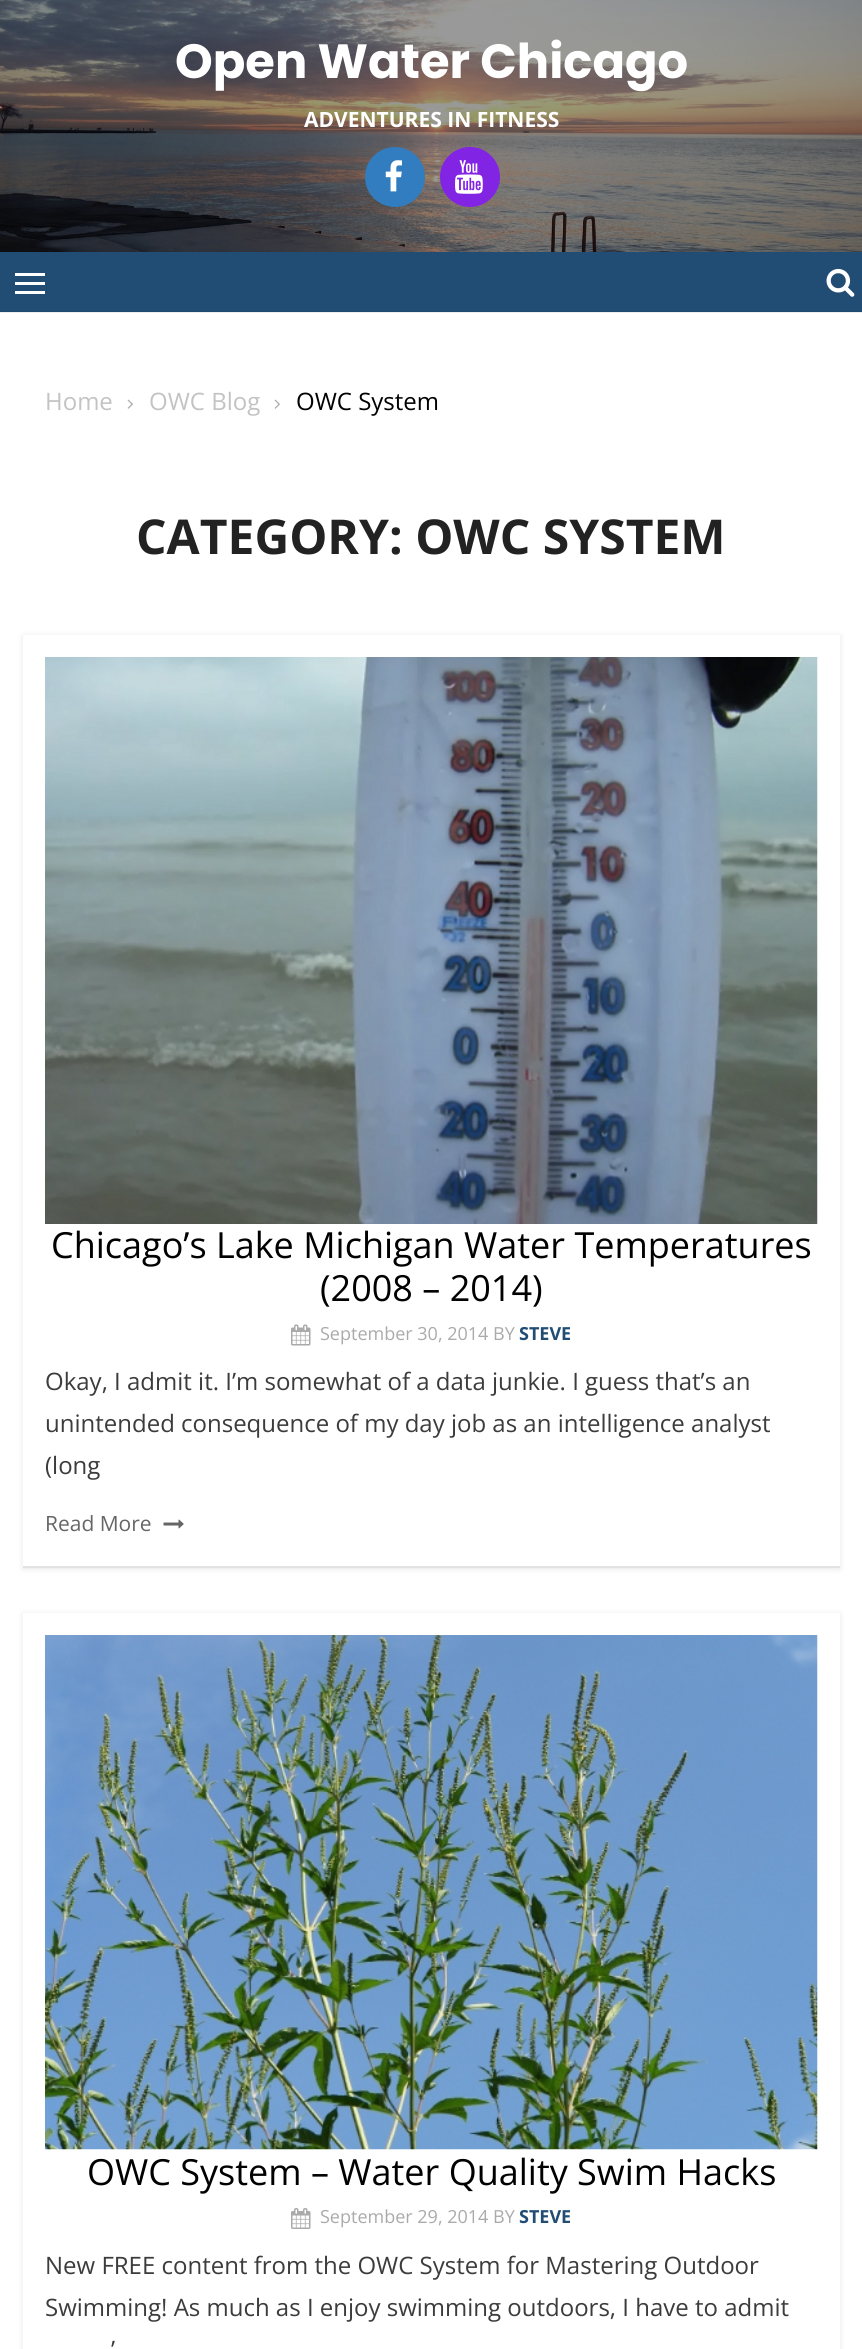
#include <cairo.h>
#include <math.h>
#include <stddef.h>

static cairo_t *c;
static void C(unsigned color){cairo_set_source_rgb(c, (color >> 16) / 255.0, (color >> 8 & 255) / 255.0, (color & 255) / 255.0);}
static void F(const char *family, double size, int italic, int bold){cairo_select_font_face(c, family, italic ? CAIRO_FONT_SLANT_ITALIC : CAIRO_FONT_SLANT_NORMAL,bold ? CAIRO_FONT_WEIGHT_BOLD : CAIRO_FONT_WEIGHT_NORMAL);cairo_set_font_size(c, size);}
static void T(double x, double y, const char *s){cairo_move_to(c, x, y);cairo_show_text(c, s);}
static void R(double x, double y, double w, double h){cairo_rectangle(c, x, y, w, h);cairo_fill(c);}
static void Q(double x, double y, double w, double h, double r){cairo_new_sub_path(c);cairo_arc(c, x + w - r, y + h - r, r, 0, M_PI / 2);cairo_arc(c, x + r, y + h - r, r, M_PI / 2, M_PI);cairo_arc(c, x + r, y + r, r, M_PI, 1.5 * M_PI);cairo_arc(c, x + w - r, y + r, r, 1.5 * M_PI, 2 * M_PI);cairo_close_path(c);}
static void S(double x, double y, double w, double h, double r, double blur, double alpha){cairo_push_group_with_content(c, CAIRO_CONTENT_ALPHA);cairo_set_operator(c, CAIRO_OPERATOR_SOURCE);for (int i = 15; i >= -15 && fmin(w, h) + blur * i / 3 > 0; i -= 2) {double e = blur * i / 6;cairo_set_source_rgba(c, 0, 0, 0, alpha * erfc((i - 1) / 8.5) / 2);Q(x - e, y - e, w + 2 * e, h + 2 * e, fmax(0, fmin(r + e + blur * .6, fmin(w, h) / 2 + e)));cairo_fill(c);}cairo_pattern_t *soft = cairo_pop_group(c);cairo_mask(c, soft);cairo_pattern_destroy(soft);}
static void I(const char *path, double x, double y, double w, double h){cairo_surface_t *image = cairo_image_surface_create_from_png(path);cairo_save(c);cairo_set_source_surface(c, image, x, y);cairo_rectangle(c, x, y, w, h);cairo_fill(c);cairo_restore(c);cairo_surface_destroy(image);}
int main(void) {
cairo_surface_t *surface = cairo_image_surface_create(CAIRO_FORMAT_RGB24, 862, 2349);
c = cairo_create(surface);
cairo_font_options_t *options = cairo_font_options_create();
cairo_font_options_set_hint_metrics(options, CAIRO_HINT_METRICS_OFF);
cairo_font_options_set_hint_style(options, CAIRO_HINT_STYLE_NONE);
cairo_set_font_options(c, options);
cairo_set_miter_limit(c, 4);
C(0xffffff);
cairo_paint(c);
C(0xededed);
R(0,312,862,1);
I("1.png",0,0,862,252);
F("Poppins",48,0,1);
C(0xffffff);
T(175,78,"Open Water Chicago");
F("Open Sans",21,0,1);
T(304,127,"ADVENTURES IN FITNESS");
C(0x317dbf);
cairo_new_path(c);
cairo_arc(c,395,177,30,0,2 * M_PI);
cairo_fill(c);
I("2.png",385,160,17,32);
C(0x8224e3);
cairo_arc(c,470,177,30,0,2 * M_PI);
cairo_fill(c);
I("3.png",455,160,28,34);
C(0x214d74);
R(0,252,862,59);
C(0x1f486c);
R(0,311,862,1);
C(0xffffff);
R(15,282,30,3);
R(15,273,30,3);
R(15,291,30,3);
I("4.png",826,268,29,29);
F("Open Sans",24,0,0);
C(0xc3c3c3);
T(45,410,"Home");
I("5.png",127,399,6,10);
T(149,410,"OWC Blog");
I("5.png",274,399,6,10);
C(0x000000);
T(296,410,"OWC System");
F("Open Sans",48,0,1);
C(0x222222);
T(136,554,"CATEGORY: OWC SYSTEM");
C(0x000000);
S(23,636,817,933,0,3,.1);
C(0xffffff);
R(23,635,817,931);
C(0xe2e2e2);
R(23,1566,817,2);
I("6.png",45,657,773,567);
F("Open Sans",36,0,0);
C(0x000000);
T(51,1258,"Chicago’s Lake Michigan Water Temperatures");
T(320,1301,"(2008 – 2014)");
I("7.png",291,1324,20,22);
F("Open Sans",18,0,0);
C(0xaaaaaa);
T(320,1340,"September 30, 2014");
T(493,1340,"BY");
F("Open Sans",18,0,1);
C(0x214d74);
T(519,1340,"STEVE");
F("Open Sans",24,0,0);
C(0x3c3c3c);
T(45,1390,"Okay, I admit it. I’m somewhat of a data junkie. I guess that’s an");
T(45,1432,"unintended consequence of my day job as an intelligence analyst");
T(45,1474,"(long");
F("Open Sans",21,0,0);
C(0x666666);
T(45,1531,"Read More");
I("8.png",163,1519,21,10);
cairo_save(c);
cairo_set_fill_rule(c,CAIRO_FILL_RULE_EVEN_ODD);
cairo_new_path(c);
cairo_move_to(c,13,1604);
cairo_line_to(c,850,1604);
cairo_line_to(c,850,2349);
cairo_line_to(c,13,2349);
cairo_close_path(c);
cairo_move_to(c,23,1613);
cairo_line_to(c,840,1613);
cairo_line_to(c,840,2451);
cairo_line_to(c,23,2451);
cairo_close_path(c);
cairo_clip(c);
C(0x000000);
S(23,1614,817,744,0,3,.1);
cairo_restore(c);
I("9.png",45,1635,773,515);
F("Open Sans",36,0,0);
C(0x000000);
T(87,2185,"OWC System – Water Quality Swim Hacks");
I("10.png",291,2208,20,21);
F("Open Sans",18,0,0);
C(0xaaaaaa);
T(320,2223,"September 29, 2014");
T(493,2223,"BY");
F("Open Sans",18,0,1);
C(0x214d74);
T(519,2223,"STEVE");
F("Open Sans",24,0,0);
C(0x3c3c3c);
T(45,2274,"New FREE content from the OWC System for Mastering Outdoor");
T(45,2316,"Swimming! As much as I enjoy swimming outdoors, I have to admit");
T(111,2358,"’");
cairo_surface_write_to_png(surface, "o.png");
cairo_font_options_destroy(options);
cairo_destroy(c);
cairo_surface_destroy(surface);
return 0;
}
